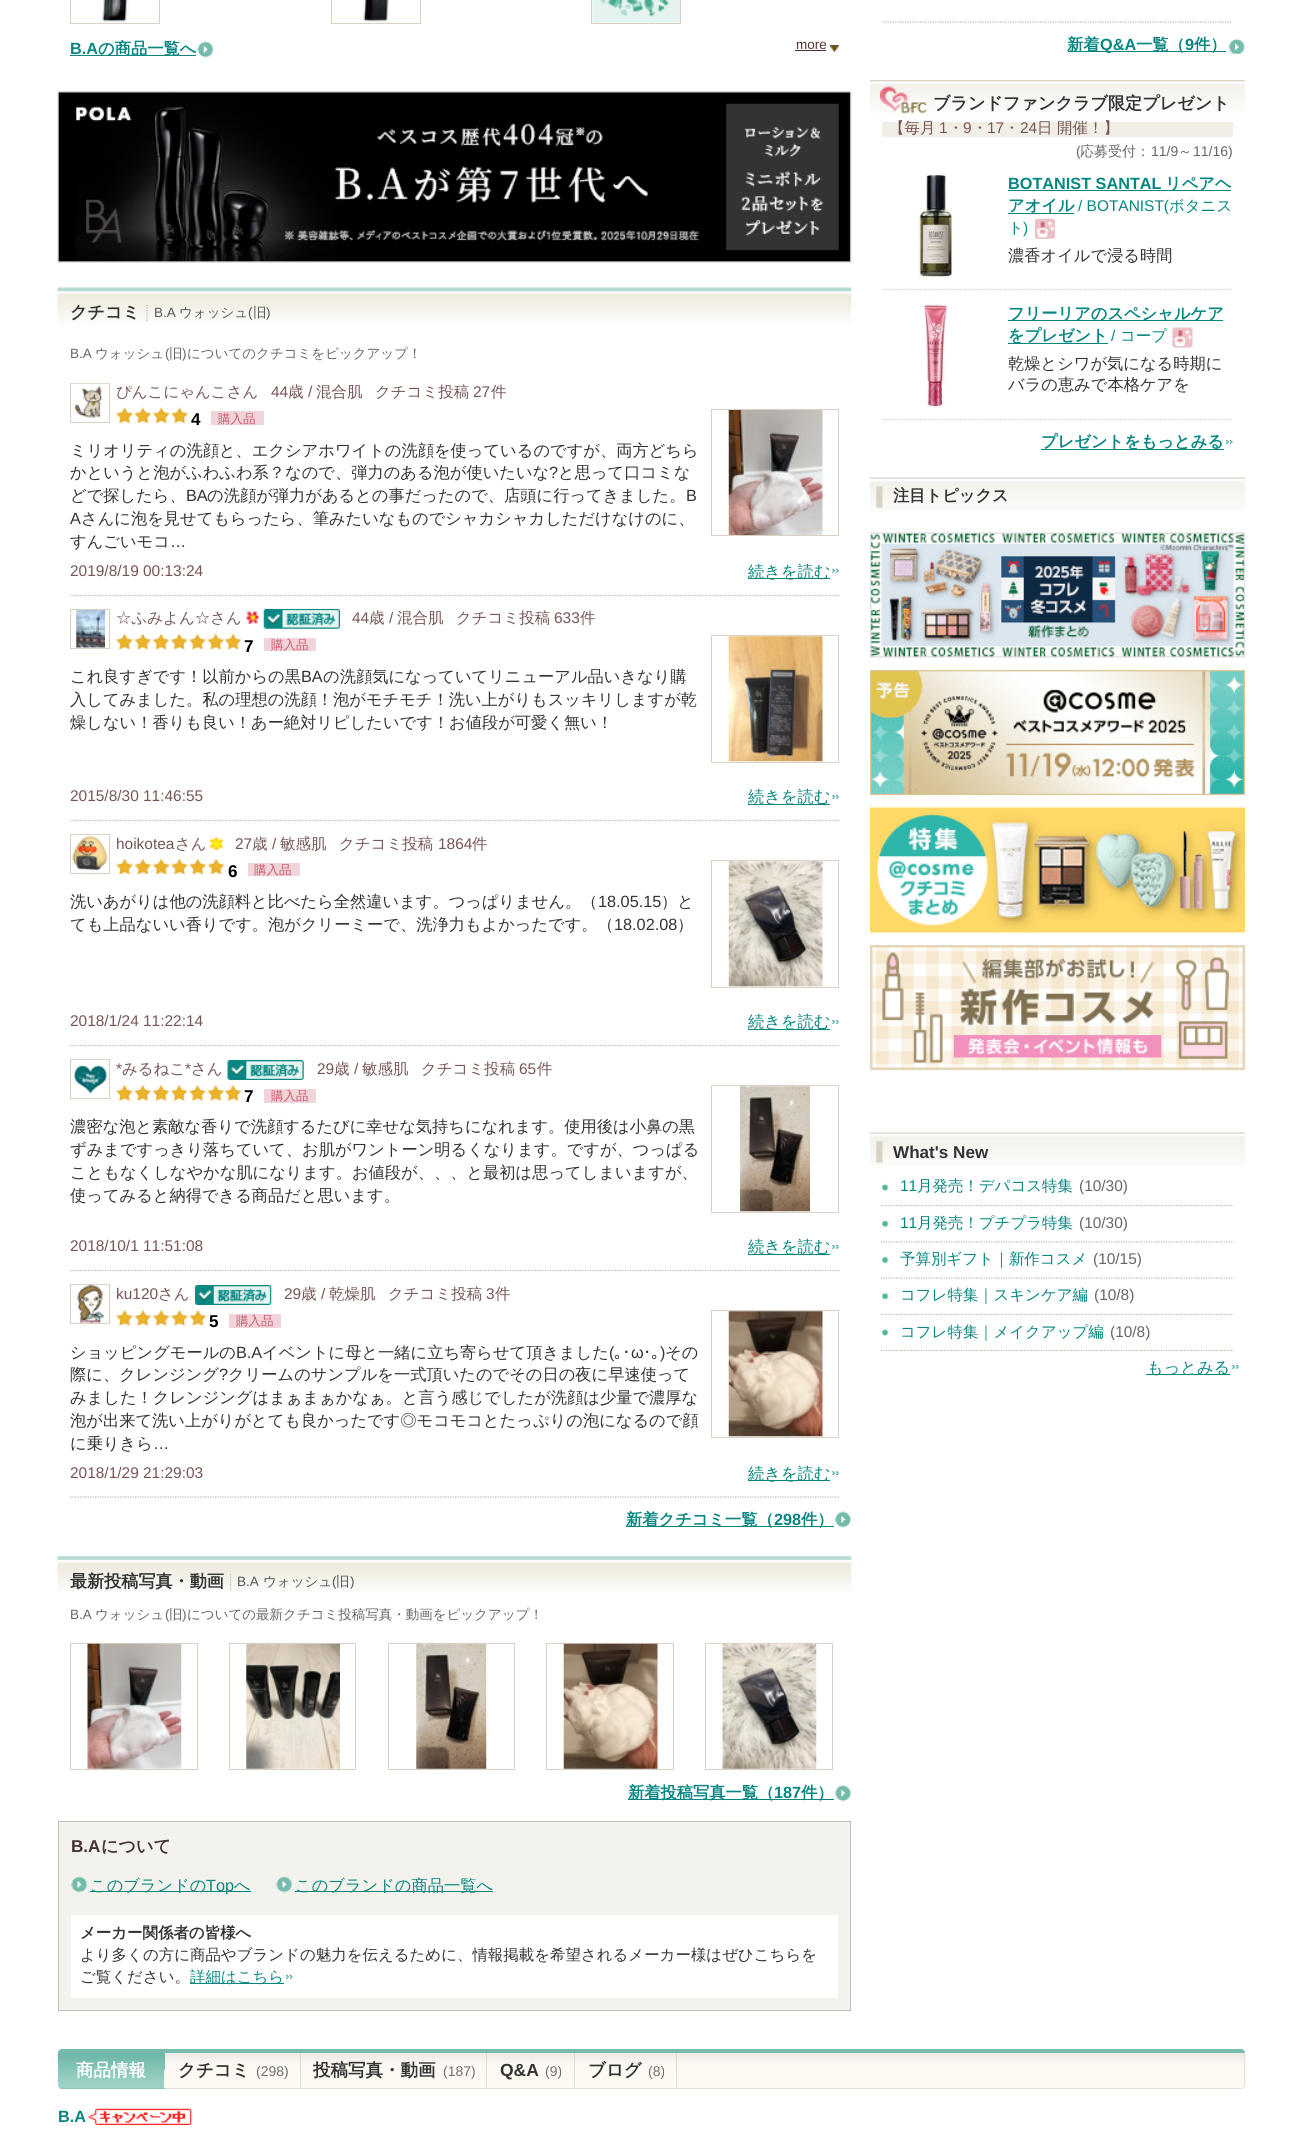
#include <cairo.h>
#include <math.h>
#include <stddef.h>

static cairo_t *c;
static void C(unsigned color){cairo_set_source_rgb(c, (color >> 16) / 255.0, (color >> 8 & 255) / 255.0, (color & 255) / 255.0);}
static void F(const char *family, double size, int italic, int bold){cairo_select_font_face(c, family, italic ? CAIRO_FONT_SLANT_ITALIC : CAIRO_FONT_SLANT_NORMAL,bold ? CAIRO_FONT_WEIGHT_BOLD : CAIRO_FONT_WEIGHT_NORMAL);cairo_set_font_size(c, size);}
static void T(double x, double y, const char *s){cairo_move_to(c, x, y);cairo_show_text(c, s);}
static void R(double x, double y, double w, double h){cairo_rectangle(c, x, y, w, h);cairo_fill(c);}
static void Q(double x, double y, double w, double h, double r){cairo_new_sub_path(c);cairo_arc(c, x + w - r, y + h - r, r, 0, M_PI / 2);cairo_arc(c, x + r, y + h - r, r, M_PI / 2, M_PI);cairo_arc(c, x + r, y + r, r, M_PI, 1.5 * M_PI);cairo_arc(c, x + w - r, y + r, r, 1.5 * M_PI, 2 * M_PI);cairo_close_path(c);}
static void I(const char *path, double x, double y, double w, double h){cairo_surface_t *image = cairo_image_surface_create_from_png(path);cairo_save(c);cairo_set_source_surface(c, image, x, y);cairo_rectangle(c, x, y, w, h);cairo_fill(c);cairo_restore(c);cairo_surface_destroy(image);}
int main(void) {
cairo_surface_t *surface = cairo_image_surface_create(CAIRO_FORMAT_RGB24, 1302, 2145);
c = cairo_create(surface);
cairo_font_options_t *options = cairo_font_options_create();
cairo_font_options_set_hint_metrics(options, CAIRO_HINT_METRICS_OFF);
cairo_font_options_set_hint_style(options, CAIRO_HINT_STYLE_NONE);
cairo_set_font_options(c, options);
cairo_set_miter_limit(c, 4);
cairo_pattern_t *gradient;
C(0xffffff);
cairo_paint(c);
cairo_rectangle(c,70.5,-.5,89,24);
C(0xd9d2c3);
cairo_set_line_width(c,1);
cairo_stroke(c);
I("1.png",102,0,28,22);
cairo_rectangle(c,331.5,-.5,89,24);
cairo_stroke(c);
I("2.png",362,0,28,22);
cairo_rectangle(c,591.5,-.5,89,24);
cairo_stroke(c);
I("3.png",592,0,88,23);
F("Liberation Sans",16.25,0,1);
C(0x068681);
T(70,54,"B.A");
R(70,55,126,1);
F("WenQuanYi Zen Hei",16.25,0,1);
T(98,54,"の商品一覧へ");
I("4.png",197,41,17,17);
I("5.png",830,45,9,7);
F("Liberation Sans",13.5,0,0);
C(0x553333);
T(796,49,"more");
R(795,50,31,1);
I("6.png",57,91,795,172);
I("7.png",57,287,795,37);
F("WenQuanYi Zen Hei",17.1,0,1);
C(0x333333);
T(70,318,"クチコミ");
cairo_new_path(c);
cairo_move_to(c,147,305);
cairo_line_to(c,147,321);
C(0xbdb8ad);
cairo_set_line_width(c,1.2);
cairo_set_dash(c,(double[]){1.25,1.25},2,0);
cairo_stroke(c);
F("Liberation Sans",13.5,0,0);
C(0x555555);
T(154,317,"B.A");
F("WenQuanYi Zen Hei Medium",13.5,0,0);
T(179,317,"ウォッシュ");
F("Liberation Sans",13.5,0,0);
T(248,317,"(");
F("WenQuanYi Zen Hei Medium",13.5,0,0);
T(253,317,"旧");
F("Liberation Sans",13.5,0,0);
T(266,317,")");
C(0x666666);
T(70,358,"B.A");
F("WenQuanYi Zen Hei Medium",13.5,0,0);
T(95,358,"ウォッシュ");
F("Liberation Sans",13.5,0,0);
T(165,358,"(");
F("WenQuanYi Zen Hei Medium",13.5,0,0);
T(169,358,"旧");
F("Liberation Sans",13.5,0,0);
T(182,358,")");
F("WenQuanYi Zen Hei Medium",13.5,0,0);
T(187,358,"についてのクチコミをピックアップ！");
cairo_new_path(c);
cairo_move_to(c,70,595.5);
cairo_line_to(c,839,595.5);
C(0xbdb8ad);
cairo_stroke(c);
cairo_rectangle(c,70.5,383.5,39,39);
C(0xd9d2c3);
cairo_set_line_width(c,1);
cairo_set_dash(c,NULL,0,0);
cairo_stroke(c);
I("8.png",71,383,38,35);
F("WenQuanYi Zen Hei Medium",15.45,0,0);
C(0x775555);
T(116,397,"ぴんこにゃんこさん");
F("Liberation Sans",15.45,0,0);
T(271,397,"44");
F("WenQuanYi Zen Hei Medium",15.45,0,0);
T(288,397,"歳");
F("Liberation Sans",15.45,0,0);
T(308,397,"/");
F("WenQuanYi Zen Hei Medium",15.45,0,0);
T(316,397,"混合肌");
T(375,397,"クチコミ投稿");
F("Liberation Sans",15.45,0,0);
T(473,397,"27");
F("WenQuanYi Zen Hei Medium",15.45,0,0);
T(491,397,"件");
I("9.png",116,407,72,17);
F("Liberation Sans",17.1,0,1);
C(0x000000);
T(191,425,"4");
C(0xf1d4d9);
R(211,411,53,14);
F("WenQuanYi Zen Hei Medium",12.5,0,0);
C(0xca576c);
T(218,423,"購入品");
F("WenQuanYi Zen Hei Medium",16.25,0,0);
C(0x333333);
T(70,456,"ミリオリティの洗顔と、エクシアホワイトの洗顔を使っているのですが、両方どちら");
T(70,478,"かというと泡がふわふわ系？なので、弾力のある泡が使いたいな");
F("Liberation Sans",16.25,0,0);
T(549,478,"?");
F("WenQuanYi Zen Hei Medium",16.25,0,0);
T(558,478,"と思って口コミな");
T(70,501,"どで探したら、");
F("Liberation Sans",16.25,0,0);
T(186,501,"BA");
F("WenQuanYi Zen Hei Medium",16.25,0,0);
T(207,501,"の洗顔が弾力があるとの事だったので、店頭に行ってきました。");
F("Liberation Sans",16.25,0,0);
T(686,501,"B");
T(70,524,"A");
F("WenQuanYi Zen Hei Medium",16.25,0,0);
T(81,524,"さんに泡を見せてもらったら、筆みたいなものでシャカシャカしただけなけのに、");
T(70,547,"すんごいモコ");
F("Liberation Sans",16.25,0,0);
T(170,547,"…");
cairo_rectangle(c,711.5,409.5,127,126);
C(0xd9d2c3);
cairo_stroke(c);
I("10.png",728,410,95,125);
F("Liberation Sans",15.45,0,0);
C(0x775555);
T(70,576,"2019/8/19 00:13:24");
C(0x068681);
R(748,578,82,1);
F("WenQuanYi Zen Hei Medium",16.25,0,0);
T(748,577,"続きを読む");
I("11.png",832,568,7,5);
cairo_new_path(c);
cairo_move_to(c,70,820.5);
cairo_line_to(c,839,820.5);
C(0xbdb8ad);
cairo_set_line_width(c,1.2);
cairo_set_dash(c,(double[]){1.25,1.25},2,0);
cairo_stroke(c);
cairo_rectangle(c,70.5,609.5,39,39);
C(0xd9d2c3);
cairo_set_line_width(c,1);
cairo_set_dash(c,NULL,0,0);
cairo_stroke(c);
I("12.png",76,610,29,38);
F("WenQuanYi Zen Hei Medium",15.45,0,0);
C(0x775555);
T(116,623,"☆ふみよん☆さん");
I("13.png",246,611,13,13);
I("14.png",263,608,77,21);
F("Liberation Sans",15.45,0,0);
T(352,623,"44");
F("WenQuanYi Zen Hei Medium",15.45,0,0);
T(369,623,"歳");
F("Liberation Sans",15.45,0,0);
T(389,623,"/");
F("WenQuanYi Zen Hei Medium",15.45,0,0);
T(397,623,"混合肌");
T(456,623,"クチコミ投稿");
F("Liberation Sans",15.45,0,0);
T(554,623,"633");
F("WenQuanYi Zen Hei Medium",15.45,0,0);
T(580,623,"件");
I("15.png",116,633,126,17);
F("Liberation Sans",17.1,0,1);
C(0x000000);
T(244,652,"7");
C(0xf1d4d9);
R(264,638,52,13);
F("WenQuanYi Zen Hei Medium",12.5,0,0);
C(0xca576c);
T(271,649,"購入品");
F("WenQuanYi Zen Hei Medium",16.25,0,0);
C(0x333333);
T(70,682,"これ良すぎです！以前からの黒");
F("Liberation Sans",16.25,0,0);
T(301,682,"BA");
F("WenQuanYi Zen Hei Medium",16.25,0,0);
T(323,682,"の洗顔気になっていてリニューアル品いきなり購");
T(70,705,"入してみました。私の理想の洗顔！泡がモチモチ！洗い上がりもスッキリしますが乾");
T(70,728,"燥しない！香りも良い！あー絶対リピしたいです！お値段が可愛く無い！");
cairo_rectangle(c,711.5,635.5,127,127);
C(0xd9d2c3);
cairo_stroke(c);
I("16.png",728,636,95,126);
F("Liberation Sans",15.45,0,0);
C(0x775555);
T(70,801,"2015/8/30 11:46:55");
C(0x068681);
R(748,804,82,1);
F("WenQuanYi Zen Hei Medium",16.25,0,0);
T(748,802,"続きを読む");
I("17.png",832,795,7,4);
cairo_new_path(c);
cairo_move_to(c,70,1045.5);
cairo_line_to(c,839,1045.5);
C(0xbdb8ad);
cairo_set_line_width(c,1.2);
cairo_set_dash(c,(double[]){1.25,1.25},2,0);
cairo_stroke(c);
cairo_rectangle(c,70.5,834.5,39,39);
C(0xd9d2c3);
cairo_set_line_width(c,1);
cairo_set_dash(c,NULL,0,0);
cairo_stroke(c);
I("18.png",72,836,36,37);
F("Liberation Sans",15.45,0,0);
C(0x775555);
T(116,849,"hoikotea");
F("WenQuanYi Zen Hei Medium",15.45,0,0);
T(175,849,"さん");
I("19.png",210,837,13,13);
F("Liberation Sans",15.45,0,0);
T(235,849,"27");
F("WenQuanYi Zen Hei Medium",15.45,0,0);
T(252,849,"歳");
F("Liberation Sans",15.45,0,0);
T(272,849,"/");
F("WenQuanYi Zen Hei Medium",15.45,0,0);
T(280,849,"敏感肌");
T(339,849,"クチコミ投稿");
F("Liberation Sans",15.45,0,0);
T(438,849,"1864");
F("WenQuanYi Zen Hei Medium",15.45,0,0);
T(472,849,"件");
I("20.png",116,858,109,17);
F("Liberation Sans",17.1,0,1);
C(0x000000);
T(228,877,"6");
C(0xf1d4d9);
R(248,863,52,13);
F("WenQuanYi Zen Hei Medium",12.5,0,0);
C(0xca576c);
T(254,874,"購入品");
F("WenQuanYi Zen Hei Medium",16.25,0,0);
C(0x333333);
T(70,907,"洗いあがりは他の洗顔料と比べたら全然違います。つっぱりません。（");
F("Liberation Sans",16.25,0,0);
T(598,907,"18.05.15");
F("WenQuanYi Zen Hei Medium",16.25,0,0);
T(661,907,"）と");
T(70,930,"ても上品ないい香りです。泡がクリーミーで、洗浄力もよかったです。（");
F("Liberation Sans",16.25,0,0);
T(614,930,"18.02.08");
F("WenQuanYi Zen Hei Medium",16.25,0,0);
T(677,930,"）");
cairo_rectangle(c,711.5,860.5,127,127);
C(0xd9d2c3);
cairo_stroke(c);
I("21.png",728,861,95,126);
F("Liberation Sans",15.45,0,0);
C(0x775555);
T(70,1026,"2018/1/24 11:22:14");
C(0x068681);
R(748,1029,82,1);
F("WenQuanYi Zen Hei Medium",16.25,0,0);
T(748,1027,"続きを読む");
I("22.png",832,1020,7,4);
cairo_new_path(c);
cairo_move_to(c,70,1270.5);
cairo_line_to(c,839,1270.5);
C(0xbdb8ad);
cairo_set_line_width(c,1.2);
cairo_set_dash(c,(double[]){1.25,1.25},2,0);
cairo_stroke(c);
cairo_rectangle(c,70.5,1059.5,39,39);
C(0xd9d2c3);
cairo_set_line_width(c,1);
cairo_set_dash(c,NULL,0,0);
cairo_stroke(c);
I("23.png",73,1065,35,29);
F("Liberation Sans",15.45,0,0);
C(0x775555);
T(116,1074,"*");
F("WenQuanYi Zen Hei Medium",15.45,0,0);
T(122,1074,"みるねこ");
F("Liberation Sans",15.45,0,0);
T(185,1074,"*");
F("WenQuanYi Zen Hei Medium",15.45,0,0);
T(191,1074,"さん");
I("24.png",227,1060,77,20);
F("Liberation Sans",15.45,0,0);
T(317,1074,"29");
F("WenQuanYi Zen Hei Medium",15.45,0,0);
T(334,1074,"歳");
F("Liberation Sans",15.45,0,0);
T(354,1074,"/");
F("WenQuanYi Zen Hei Medium",15.45,0,0);
T(362,1074,"敏感肌");
T(421,1074,"クチコミ投稿");
F("Liberation Sans",15.45,0,0);
T(519,1074,"65");
F("WenQuanYi Zen Hei Medium",15.45,0,0);
T(537,1074,"件");
I("25.png",116,1084,126,18);
F("Liberation Sans",17.1,0,1);
C(0x000000);
T(244,1102,"7");
C(0xf1d4d9);
R(264,1089,52,14);
F("WenQuanYi Zen Hei Medium",12.5,0,0);
C(0xca576c);
T(271,1100,"購入品");
F("WenQuanYi Zen Hei Medium",16.25,0,0);
C(0x333333);
T(70,1132,"濃密な泡と素敵な香りで洗顔するたびに幸せな気持ちになれます。使用後は小鼻の黒");
T(70,1155,"ずみまですっきり落ちていて、お肌がワントーン明るくなります。ですが、つっぱる");
T(70,1178,"こともなくしなやかな肌になります。お値段が、、、と最初は思ってしまいますが、");
T(70,1201,"使ってみると納得できる商品だと思います。");
cairo_rectangle(c,711.5,1085.5,127,127);
C(0xd9d2c3);
cairo_stroke(c);
I("26.png",740,1086,70,126);
F("Liberation Sans",15.45,0,0);
C(0x775555);
T(70,1251,"2018/10/1 11:51:08");
C(0x068681);
R(748,1254,82,1);
F("WenQuanYi Zen Hei Medium",16.25,0,0);
T(748,1252,"続きを読む");
I("22.png",832,1245,7,4);
cairo_new_path(c);
cairo_move_to(c,70,1497);
cairo_line_to(c,839,1497);
C(0xbdb8ad);
cairo_set_line_width(c,1.2);
cairo_set_dash(c,(double[]){1.25,1.25},2,0);
cairo_stroke(c);
cairo_rectangle(c,70.5,1284.5,39,39);
C(0xd9d2c3);
cairo_set_line_width(c,1);
cairo_set_dash(c,NULL,0,0);
cairo_stroke(c);
I("27.png",77,1285,28,38);
F("Liberation Sans",15.45,0,0);
C(0x775555);
T(116,1299,"ku120");
F("WenQuanYi Zen Hei Medium",15.45,0,0);
T(158,1299,"さん");
I("28.png",195,1285,77,20);
F("Liberation Sans",15.45,0,0);
T(284,1299,"29");
F("WenQuanYi Zen Hei Medium",15.45,0,0);
T(301,1299,"歳");
F("Liberation Sans",15.45,0,0);
T(321,1299,"/");
F("WenQuanYi Zen Hei Medium",15.45,0,0);
T(329,1299,"乾燥肌");
T(388,1299,"クチコミ投稿");
F("Liberation Sans",15.45,0,0);
T(486,1299,"3");
F("WenQuanYi Zen Hei Medium",15.45,0,0);
T(495,1299,"件");
I("29.png",116,1309,91,18);
F("Liberation Sans",17.1,0,1);
C(0x000000);
T(209,1327,"5");
C(0xf1d4d9);
R(229,1314,52,14);
F("WenQuanYi Zen Hei Medium",12.5,0,0);
C(0xca576c);
T(236,1325,"購入品");
F("WenQuanYi Zen Hei Medium",16.25,0,0);
C(0x333333);
T(70,1358,"ショッピングモールの");
F("Liberation Sans",16.25,0,0);
T(236,1358,"B.A");
F("WenQuanYi Zen Hei Medium",16.25,0,0);
T(262,1358,"イベントに母と一緒に立ち寄らせて頂きました");
F("Liberation Sans",16.25,0,0);
T(609,1358,"(");
F("IPAPGothic",16.25,0,0);
T(614,1358,"｡･");
F("Liberation Sans",16.25,0,0);
T(631,1358,"ω");
F("IPAPGothic",16.25,0,0);
T(643,1358,"･｡");
F("Liberation Sans",16.25,0,0);
T(660,1358,")");
F("WenQuanYi Zen Hei Medium",16.25,0,0);
T(665,1358,"その");
T(70,1380,"際に、クレンジング");
F("Liberation Sans",16.25,0,0);
T(219,1380,"?");
F("WenQuanYi Zen Hei Medium",16.25,0,0);
T(228,1380,"クリームのサンプルを一式頂いたのでその日の夜に早速使って");
T(70,1403,"みました！クレンジングはまぁまぁかなぁ。と言う感じでしたが洗顔は少量で濃厚な");
T(70,1426,"泡が出来て洗い上がりがとても良かったです◎モコモコとたっぷりの泡になるので顔");
T(70,1449,"に乗りきら");
F("Liberation Sans",16.25,0,0);
T(153,1449,"…");
cairo_rectangle(c,711.5,1310.5,127,127);
C(0xd9d2c3);
cairo_stroke(c);
I("30.png",728,1311,95,126);
F("Liberation Sans",15.45,0,0);
C(0x775555);
T(70,1478,"2018/1/29 21:29:03");
C(0x068681);
R(748,1480,82,1);
F("WenQuanYi Zen Hei Medium",16.25,0,0);
T(748,1479,"続きを読む");
I("31.png",832,1471,7,4);
I("32.png",835,1511,17,17);
R(626,1526,208,1);
F("WenQuanYi Zen Hei",16.25,0,1);
T(626,1525,"新着クチコミ一覧（");
F("Liberation Sans",16.25,0,1);
T(774,1525,"298");
F("WenQuanYi Zen Hei",16.25,0,1);
T(801,1525,"件）");
I("33.png",57,1556,795,36);
F("WenQuanYi Zen Hei",17.1,0,1);
C(0x333333);
T(70,1587,"最新投稿写真・動画");
cairo_new_path(c);
cairo_move_to(c,230.5,1574);
cairo_line_to(c,230.5,1590);
C(0xbdb8ad);
cairo_set_line_width(c,1.2);
cairo_set_dash(c,(double[]){1.25,1.25},2,0);
cairo_stroke(c);
F("Liberation Sans",13.5,0,0);
C(0x555555);
T(237,1586,"B.A");
F("WenQuanYi Zen Hei Medium",13.5,0,0);
T(263,1586,"ウォッシュ");
F("Liberation Sans",13.5,0,0);
T(332,1586,"(");
F("WenQuanYi Zen Hei Medium",13.5,0,0);
T(336,1586,"旧");
F("Liberation Sans",13.5,0,0);
T(350,1586,")");
C(0x666666);
T(70,1619,"B.A");
F("WenQuanYi Zen Hei Medium",13.5,0,0);
T(95,1619,"ウォッシュ");
F("Liberation Sans",13.5,0,0);
T(165,1619,"(");
F("WenQuanYi Zen Hei Medium",13.5,0,0);
T(169,1619,"旧");
F("Liberation Sans",13.5,0,0);
T(182,1619,")");
F("WenQuanYi Zen Hei Medium",13.5,0,0);
T(187,1619,"についての最新クチコミ投稿写真・動画をピックアップ！");
cairo_rectangle(c,70.5,1643.5,127,126);
C(0xd9d2c3);
cairo_set_line_width(c,1);
cairo_set_dash(c,NULL,0,0);
cairo_stroke(c);
I("34.png",87,1643,95,126);
cairo_rectangle(c,229.5,1643.5,126,126);
cairo_stroke(c);
I("35.png",246,1643,94,126);
cairo_rectangle(c,388.5,1643.5,126,126);
cairo_stroke(c);
I("36.png",416,1643,71,126);
cairo_rectangle(c,546.5,1643.5,127,126);
cairo_stroke(c);
I("37.png",563,1643,95,126);
cairo_rectangle(c,705.5,1643.5,127,126);
cairo_stroke(c);
I("38.png",722,1643,95,126);
C(0x068681);
R(628,1799,206,1);
F("WenQuanYi Zen Hei",16.25,0,1);
T(628,1798,"新着投稿写真一覧（");
F("Liberation Sans",16.25,0,1);
T(774,1798,"187");
F("WenQuanYi Zen Hei",16.25,0,1);
T(801,1798,"件）");
I("39.png",835,1785,17,17);
C(0xf4f2ec);
cairo_rectangle(c,58.5,1821.5,792,189);
cairo_fill_preserve(c);
C(0xc2beb3);
cairo_stroke(c);
F("Liberation Sans",17.1,0,1);
C(0x443333);
T(71,1852,"B.A");
F("WenQuanYi Zen Hei",17.1,0,1);
T(101,1852,"について");
I("40.png",71,1876,17,17);
C(0x068681);
R(90,1891,161,1);
F("WenQuanYi Zen Hei Medium",16.25,0,0);
T(90,1891,"このブランドの");
F("Liberation Sans",16.25,0,0);
T(206,1891,"Top");
F("WenQuanYi Zen Hei Medium",16.25,0,0);
T(234,1891,"へ");
I("40.png",276,1876,17,17);
R(295,1891,198,1);
T(295,1891,"このブランドの商品一覧へ");
C(0xffffff);
R(71,1915,767,83);
F("WenQuanYi Zen Hei",15.45,0,1);
C(0x333333);
T(80,1938,"メーカー関係者の皆様へ");
F("WenQuanYi Zen Hei Medium",15.45,0,0);
T(80,1960,"より多くの方に商品やブランドの魅力を伝えるために、情報掲載を希望されるメーカー様はぜひこちらを");
T(80,1982,"ご覧ください。");
C(0x068681);
R(190,1983,94,1);
T(190,1982,"詳細はこちら");
I("41.png",286,1975,7,4);
cairo_new_path(c);
cairo_move_to(c,882.5,22);
cairo_line_to(c,1232.5,22);
C(0xbdb8ad);
cairo_set_line_width(c,1.2);
cairo_set_dash(c,(double[]){1.25,1.25},2,0);
cairo_stroke(c);
C(0x068681);
R(1068,51,158,1);
F("WenQuanYi Zen Hei",16.25,0,1);
T(1067,50,"新着");
F("Liberation Sans",16.25,0,1);
T(1100,50,"Q&A");
F("WenQuanYi Zen Hei",16.25,0,1);
T(1136,50,"一覧（");
F("Liberation Sans",16.25,0,1);
T(1185,50,"9");
F("WenQuanYi Zen Hei",16.25,0,1);
T(1194,50,"件）");
I("42.png",1228,38,17,16);
I("43.png",870,80,375,33);
I("44.png",880,86,47,28);
F("WenQuanYi Zen Hei",17.1,0,1);
C(0x333333);
T(933,109,"ブランドファンクラブ限定プレゼント");
C(0xf1eee8);
R(882,122,351,15);
F("WenQuanYi Zen Hei Medium",15.45,0,0);
C(0x775555);
T(889,133,"【毎月");
F("Liberation Sans",15.45,0,0);
T(939,133,"1");
F("WenQuanYi Zen Hei Medium",15.45,0,0);
T(948,133,"・");
F("Liberation Sans",15.45,0,0);
T(963,133,"9");
F("WenQuanYi Zen Hei Medium",15.45,0,0);
T(972,133,"・");
F("Liberation Sans",15.45,0,0);
T(987,133,"17");
F("WenQuanYi Zen Hei Medium",15.45,0,0);
T(1004,133,"・");
F("Liberation Sans",15.45,0,0);
T(1020,133,"24");
F("WenQuanYi Zen Hei Medium",15.45,0,0);
T(1037,133,"日 開催！】");
F("Liberation Sans",14,0,0);
C(0x666666);
T(1076,156,"(");
F("WenQuanYi Zen Hei Medium",14,0,0);
T(1080,156,"応募受付：");
F("Liberation Sans",14,0,0);
T(1151,156,"11/9");
F("WenQuanYi Zen Hei Medium",14,0,0);
T(1178,156,"～");
F("Liberation Sans",14,0,0);
T(1193,156,"11/16)");
cairo_new_path(c);
cairo_move_to(c,882.5,289.5);
cairo_line_to(c,1232.5,289.5);
C(0xcccccc);
cairo_stroke(c);
I("45.png",918,173,35,105);
F("Liberation Sans",16.25,0,1);
C(0x068681);
T(1008,189,"BOTANIST SANTAL");
R(1008,190,223,1);
F("WenQuanYi Zen Hei",16.25,0,1);
T(1165,189,"リペアヘ");
R(1008,213,66,1);
T(1008,211,"アオイル");
F("Liberation Sans",15.45,0,0);
T(1078,211,"/ BOTANIST(");
F("WenQuanYi Zen Hei Medium",15.45,0,0);
T(1169,211,"ボタニス");
T(1008,233,"ト");
F("Liberation Sans",15.45,0,0);
T(1023,233,")");
I("46.png",1035,218,20,21);
F("WenQuanYi Zen Hei Medium",16.25,0,0);
C(0x333333);
T(1008,261,"濃香オイルで浸る時間");
cairo_new_path(c);
cairo_move_to(c,882.5,419.5);
cairo_line_to(c,1232.5,419.5);
C(0xcccccc);
cairo_stroke(c);
I("47.png",924,303,27,106);
C(0x068681);
R(1008,320,215,1);
F("WenQuanYi Zen Hei",16.25,0,1);
T(1008,319,"フリーリアのスペシャルケア");
R(1008,343,100,1);
T(1008,341,"をプレゼント");
F("Liberation Sans",15.45,0,0);
T(1111,341,"/");
F("WenQuanYi Zen Hei Medium",15.45,0,0);
T(1120,341,"コープ");
I("48.png",1172,327,21,21);
F("WenQuanYi Zen Hei Medium",16.25,0,0);
C(0x333333);
T(1008,369,"乾燥とシワが気になる時期に");
T(1008,390,"バラの恵みで本格ケアを");
C(0x068681);
R(1041,449,183,1);
F("WenQuanYi Zen Hei",16.25,0,1);
T(1041,447,"プレゼントをもっとみる");
I("41.png",1226,440,7,4);
I("49.png",870,477,375,34);
C(0x333333);
T(893,501,"注目トピックス");
I("50.png",870,532,375,126);
I("51.png",870,670,375,125);
I("52.png",870,807,375,126);
I("53.png",870,945,375,125);
I("49.png",870,1132,375,34);
F("Liberation Sans",17.1,0,1);
T(893,1158,"What's New");
I("54.png",881,1183,8,9);
cairo_new_path(c);
cairo_move_to(c,881,1205.5);
cairo_line_to(c,1234,1205.5);
C(0xbfb7ac);
cairo_stroke(c);
F("Liberation Sans",15.45,0,0);
C(0x068681);
T(900,1191,"11");
F("WenQuanYi Zen Hei Medium",15.45,0,0);
T(917,1191,"月発売！デパコス特集");
F("Liberation Sans",15.45,0,0);
C(0x666666);
T(1079,1191,"(10/30)");
I("55.png",881,1220,8,8);
cairo_new_path(c);
cairo_move_to(c,881,1242);
cairo_line_to(c,1234,1242);
C(0xbfb7ac);
cairo_stroke(c);
C(0x068681);
T(900,1228,"11");
F("WenQuanYi Zen Hei Medium",15.45,0,0);
T(917,1228,"月発売！プチプラ特集");
F("Liberation Sans",15.45,0,0);
C(0x666666);
T(1079,1228,"(10/30)");
I("56.png",881,1256,8,8);
cairo_new_path(c);
cairo_move_to(c,881,1278);
cairo_line_to(c,1234,1278);
C(0xbfb7ac);
cairo_stroke(c);
F("WenQuanYi Zen Hei Medium",15.45,0,0);
C(0x068681);
T(900,1264,"予算別ギフト｜新作コスメ");
F("Liberation Sans",15.45,0,0);
C(0x666666);
T(1093,1264,"(10/15)");
I("57.png",881,1292,8,8);
cairo_new_path(c);
cairo_move_to(c,881,1314.5);
cairo_line_to(c,1234,1314.5);
C(0xbfb7ac);
cairo_stroke(c);
F("WenQuanYi Zen Hei Medium",15.45,0,0);
C(0x068681);
T(900,1300,"コフレ特集｜スキンケア編");
F("Liberation Sans",15.45,0,0);
C(0x666666);
T(1094,1300,"(10/8)");
I("54.png",881,1328,8,9);
cairo_new_path(c);
cairo_move_to(c,881,1350.5);
cairo_line_to(c,1234,1350.5);
C(0xbfb7ac);
cairo_stroke(c);
F("WenQuanYi Zen Hei Medium",15.45,0,0);
C(0x068681);
T(900,1337,"コフレ特集｜メイクアップ編");
F("Liberation Sans",15.45,0,0);
C(0x666666);
T(1110,1337,"(10/8)");
C(0x068681);
R(1146,1374,84,1);
F("WenQuanYi Zen Hei Medium",16.25,0,0);
T(1147,1373,"もっとみる");
I("58.png",1232,1365,7,4);
gradient = cairo_pattern_create_linear(651,2049,651,2089);
cairo_pattern_add_color_stop_rgba(gradient,.16,0.937,0.925,0.906,1);
cairo_pattern_add_color_stop_rgba(gradient,.4,0.992,0.98,0.953,1);
cairo_pattern_add_color_stop_rgba(gradient,1,0.992,0.98,0.953,1);
cairo_set_source(c,gradient);
cairo_pattern_destroy(gradient);
Q(58.5,2049.5,1186,39,3.5);
cairo_fill_preserve(c);
C(0xe5e0d5);
cairo_set_line_width(c,1);
cairo_set_dash(c,NULL,0,0);
cairo_stroke(c);
cairo_save(c);
Q(58,2049,1187,40,4);
cairo_clip(c);
cairo_new_path(c);
cairo_move_to(c,58,2050);
cairo_line_to(c,165,2050);
cairo_line_to(c,165,2089);
cairo_line_to(c,63,2089);
cairo_curve_to(c,60,2089,58,2087,58,2084);
cairo_close_path(c);
cairo_clip(c);
gradient = cairo_pattern_create_linear(111,2050,111,2088);
cairo_pattern_add_color_stop_rgba(gradient,.15,0.435,0.725,0.659,1);
cairo_pattern_add_color_stop_rgba(gradient,.85,0.608,0.82,0.773,1);
cairo_set_source(c,gradient);
cairo_pattern_destroy(gradient);
R(58,2050,106,38);
cairo_restore(c);
C(0x76bbab);
cairo_new_path(c);
cairo_move_to(c,62,2049);
cairo_line_to(c,1241,2049);
cairo_curve_to(c,1243,2049,1245,2051,1245,2053);
cairo_line_to(c,58,2053);
cairo_curve_to(c,58,2051,60,2049,62,2049);
cairo_close_path(c);
cairo_fill(c);
C(0x95c6bb);
R(60,2088,105,1);
F("WenQuanYi Zen Hei",17.5,0,1);
C(0xffffff);
T(76,2076,"商品情報");
gradient = cairo_pattern_create_linear(164,2053,164,2088);
cairo_pattern_add_color_stop_rgba(gradient,.15,0.435,0.725,0.659,1);
cairo_pattern_add_color_stop_rgba(gradient,.85,0.608,0.82,0.773,1);
cairo_set_source(c,gradient);
cairo_pattern_destroy(gradient);
R(164,2053,1,17);
C(0x333333);
T(178,2076,"クチコミ");
F("Liberation Sans",14,0,0);
C(0x706f6d);
T(256,2076,"(298)");
gradient = cairo_pattern_create_linear(301,2053,301,2088);
cairo_pattern_add_color_stop_rgba(gradient,.15,0.871,0.843,0.78,1);
cairo_pattern_add_color_stop_rgba(gradient,.85,0.898,0.878,0.835,1);
cairo_set_source(c,gradient);
cairo_pattern_destroy(gradient);
R(300,2053,1,35);
F("WenQuanYi Zen Hei",17.5,0,1);
C(0x333333);
T(313,2076,"投稿写真・動画");
F("Liberation Sans",14,0,0);
C(0x706f6d);
T(443,2076,"(187)");
gradient = cairo_pattern_create_linear(487,2053,487,2088);
cairo_pattern_add_color_stop_rgba(gradient,.15,0.871,0.843,0.78,1);
cairo_pattern_add_color_stop_rgba(gradient,.85,0.898,0.878,0.835,1);
cairo_set_source(c,gradient);
cairo_pattern_destroy(gradient);
R(486,2053,1,35);
F("Liberation Sans",17.5,0,1);
C(0x333333);
T(500,2076,"Q&A");
F("Liberation Sans",14,0,0);
C(0x706f6d);
T(545,2076,"(9)");
gradient = cairo_pattern_create_linear(574,2053,574,2088);
cairo_pattern_add_color_stop_rgba(gradient,.15,0.871,0.843,0.78,1);
cairo_pattern_add_color_stop_rgba(gradient,.85,0.898,0.878,0.835,1);
cairo_set_source(c,gradient);
cairo_pattern_destroy(gradient);
R(574,2053,1,35);
F("WenQuanYi Zen Hei",17.5,0,1);
C(0x333333);
T(588,2076,"ブログ");
F("Liberation Sans",14,0,0);
C(0x706f6d);
T(648,2076,"(8)");
gradient = cairo_pattern_create_linear(677,2053,677,2088);
cairo_pattern_add_color_stop_rgba(gradient,.15,0.871,0.843,0.78,1);
cairo_pattern_add_color_stop_rgba(gradient,.85,0.898,0.878,0.835,1);
cairo_set_source(c,gradient);
cairo_pattern_destroy(gradient);
R(676,2053,1,35);
F("Liberation Sans",16.25,0,1);
C(0x068681);
T(58,2122,"B.A");
I("59.png",87,2108,106,17);
cairo_surface_write_to_png(surface, "o.png");
cairo_font_options_destroy(options);
cairo_destroy(c);
cairo_surface_destroy(surface);
return 0;
}
